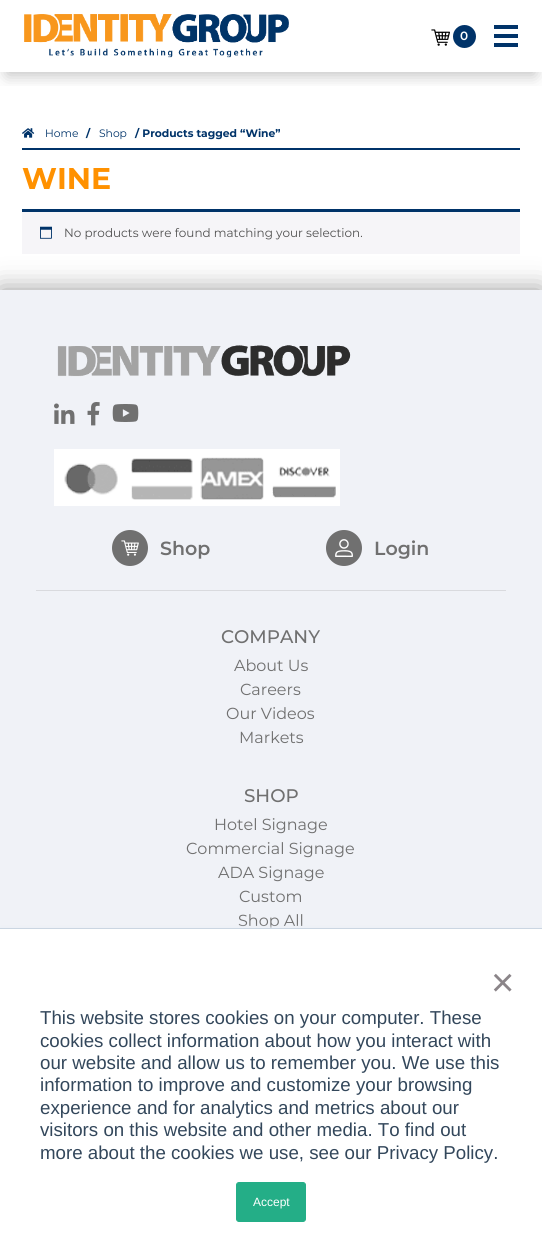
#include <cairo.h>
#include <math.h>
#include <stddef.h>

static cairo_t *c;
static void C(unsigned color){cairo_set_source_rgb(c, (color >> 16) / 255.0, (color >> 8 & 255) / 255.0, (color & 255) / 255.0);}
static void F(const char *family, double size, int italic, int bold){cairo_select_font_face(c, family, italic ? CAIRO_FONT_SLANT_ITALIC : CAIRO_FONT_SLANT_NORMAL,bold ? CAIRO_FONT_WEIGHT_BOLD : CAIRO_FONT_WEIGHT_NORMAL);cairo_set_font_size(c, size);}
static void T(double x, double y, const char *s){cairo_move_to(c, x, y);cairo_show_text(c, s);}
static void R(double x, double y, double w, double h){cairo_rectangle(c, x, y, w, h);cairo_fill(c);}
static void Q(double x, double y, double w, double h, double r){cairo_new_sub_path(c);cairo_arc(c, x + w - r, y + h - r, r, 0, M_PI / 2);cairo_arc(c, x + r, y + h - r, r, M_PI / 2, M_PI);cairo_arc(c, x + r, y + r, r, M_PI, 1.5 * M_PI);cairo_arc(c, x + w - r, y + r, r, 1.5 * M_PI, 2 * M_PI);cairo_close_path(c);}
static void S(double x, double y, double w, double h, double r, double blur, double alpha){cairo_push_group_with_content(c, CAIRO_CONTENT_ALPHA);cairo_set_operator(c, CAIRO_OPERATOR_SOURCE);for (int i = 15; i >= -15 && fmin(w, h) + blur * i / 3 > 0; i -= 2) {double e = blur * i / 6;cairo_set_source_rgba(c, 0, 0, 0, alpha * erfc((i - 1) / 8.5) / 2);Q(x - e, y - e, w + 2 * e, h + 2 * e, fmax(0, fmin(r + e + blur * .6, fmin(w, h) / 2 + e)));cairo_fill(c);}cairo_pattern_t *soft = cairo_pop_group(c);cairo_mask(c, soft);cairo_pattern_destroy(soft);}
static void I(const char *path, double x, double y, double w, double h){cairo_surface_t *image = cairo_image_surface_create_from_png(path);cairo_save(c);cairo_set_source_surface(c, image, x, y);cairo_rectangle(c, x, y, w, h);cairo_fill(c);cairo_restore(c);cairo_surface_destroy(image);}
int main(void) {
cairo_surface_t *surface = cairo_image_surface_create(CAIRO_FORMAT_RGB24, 542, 1248);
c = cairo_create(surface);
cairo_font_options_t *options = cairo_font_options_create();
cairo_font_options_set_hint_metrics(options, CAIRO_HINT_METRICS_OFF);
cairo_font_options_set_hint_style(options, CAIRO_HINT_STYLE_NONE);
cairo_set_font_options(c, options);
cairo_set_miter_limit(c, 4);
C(0xffffff);
cairo_paint(c);
cairo_save(c);
cairo_rectangle(c,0,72,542,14);
cairo_clip(c);
C(0x000000);
S(7,17,528,58,0,8,.25);
cairo_restore(c);
I("1.png",24,14,265,44);
I("2.png",431,29,19,17);
C(0x003369);
cairo_arc(c,464.5,36.5,11.5,0,2 * M_PI);
cairo_fill(c);
F("Montserrat SemiBold",12,0,0);
C(0xffffff);
T(460,40,"0");
C(0x003369);
R(494,25,24,4);
R(494,34,24,4);
R(494,43,24,4);
R(22,148,498,2);
I("3.png",22,128,13,10);
F("Montserrat",10.75,0,0);
T(45,137,"Home");
F("Montserrat",10.75,0,1);
T(86,137,"/");
F("Montserrat",10.75,0,0);
T(99,137,"Shop");
F("Montserrat",10.75,0,1);
T(135,137,"/ Products tagged “Wine”");
F("Montserrat",30,0,1);
C(0xff9100);
T(22,189,"WINE");
C(0x000000);
S(0,290,542,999,0,13.5,.4);
C(0xf6f5f8);
R(22,212,498,42);
C(0x003369);
R(22,209,498,3);
I("4.png",40,226,12,13);
F("Montserrat",12,0,0);
C(0x515151);
T(64,237,"No products were found matching your selection.");
C(0xf0f2f7);
R(0,290,542,638);
I("5.png",57,345,294,32);
I("6.png",54,403,21,21);
I("7.png",87,402,13,24);
I("8.png",112,404,27,18);
C(0xffffff);
R(54,449,286,57);
I("9.png",64,463,54,32);
I("10.png",131,458,62,42);
I("11.png",200,457,64,43);
I("12.png",272,466,64,32);
C(0x707070);
cairo_arc(c,130,548,18,0,2 * M_PI);
cairo_fill(c);
I("13.png",121,540,18,16);
F("Montserrat SemiBold",19,0,0);
T(160,555,"Shop");
cairo_new_path(c);
cairo_arc(c,344,548,18,0,2 * M_PI);
cairo_fill(c);
I("14.png",335,539,18,18);
T(374,555,"Login");
C(0xd9dade);
R(36,590,470,1);
F("Montserrat Medium",18.25,0,0);
C(0x707070);
T(221,643,"COMPANY");
F("Montserrat",16,0,0);
T(234,671,"About Us");
T(240,695,"Careers");
T(226,719,"Our Videos");
T(239,743,"Markets");
F("Montserrat Medium",18.25,0,0);
T(244,802,"SHOP");
F("Montserrat",16,0,0);
T(214,830,"Hotel Signage");
T(186,854,"Commercial Signage");
T(218,878,"ADA Signage");
T(239,902,"Custom");
T(238,926,"Shop All");
C(0xeaf0f6);
S(0,927,542,320,0,1.5,1);
C(0xffffff);
R(0,929,542,319);
C(0xcbd6e2);
R(0,928,542,1);
F("Liberation Sans",40,0,0);
C(0x8b8589);
T(491,996,"×");
F("Liberation Sans",18.7,0,0);
C(0x33475b);
T(40,1024,"This website stores cookies on your computer. These");
T(40,1047,"cookies collect information about how you interact with");
T(40,1069,"our website and allow us to remember you. We use this");
T(40,1091,"information to improve and customize your browsing");
T(40,1114,"experience and for analytics and metrics about our");
T(40,1136,"visitors on this website and other media. To find out");
T(40,1159,"more about the cookies we use, see our Privacy Policy.");
C(0x24ae87);
Q(236.5,1182.5,69,39,2.5);
cairo_fill_preserve(c);
cairo_set_line_width(c,1);
cairo_stroke(c);
F("Liberation Sans",12,0,0);
C(0xffffff);
T(253,1206,"Accept");
cairo_surface_write_to_png(surface, "o.png");
cairo_font_options_destroy(options);
cairo_destroy(c);
cairo_surface_destroy(surface);
return 0;
}
